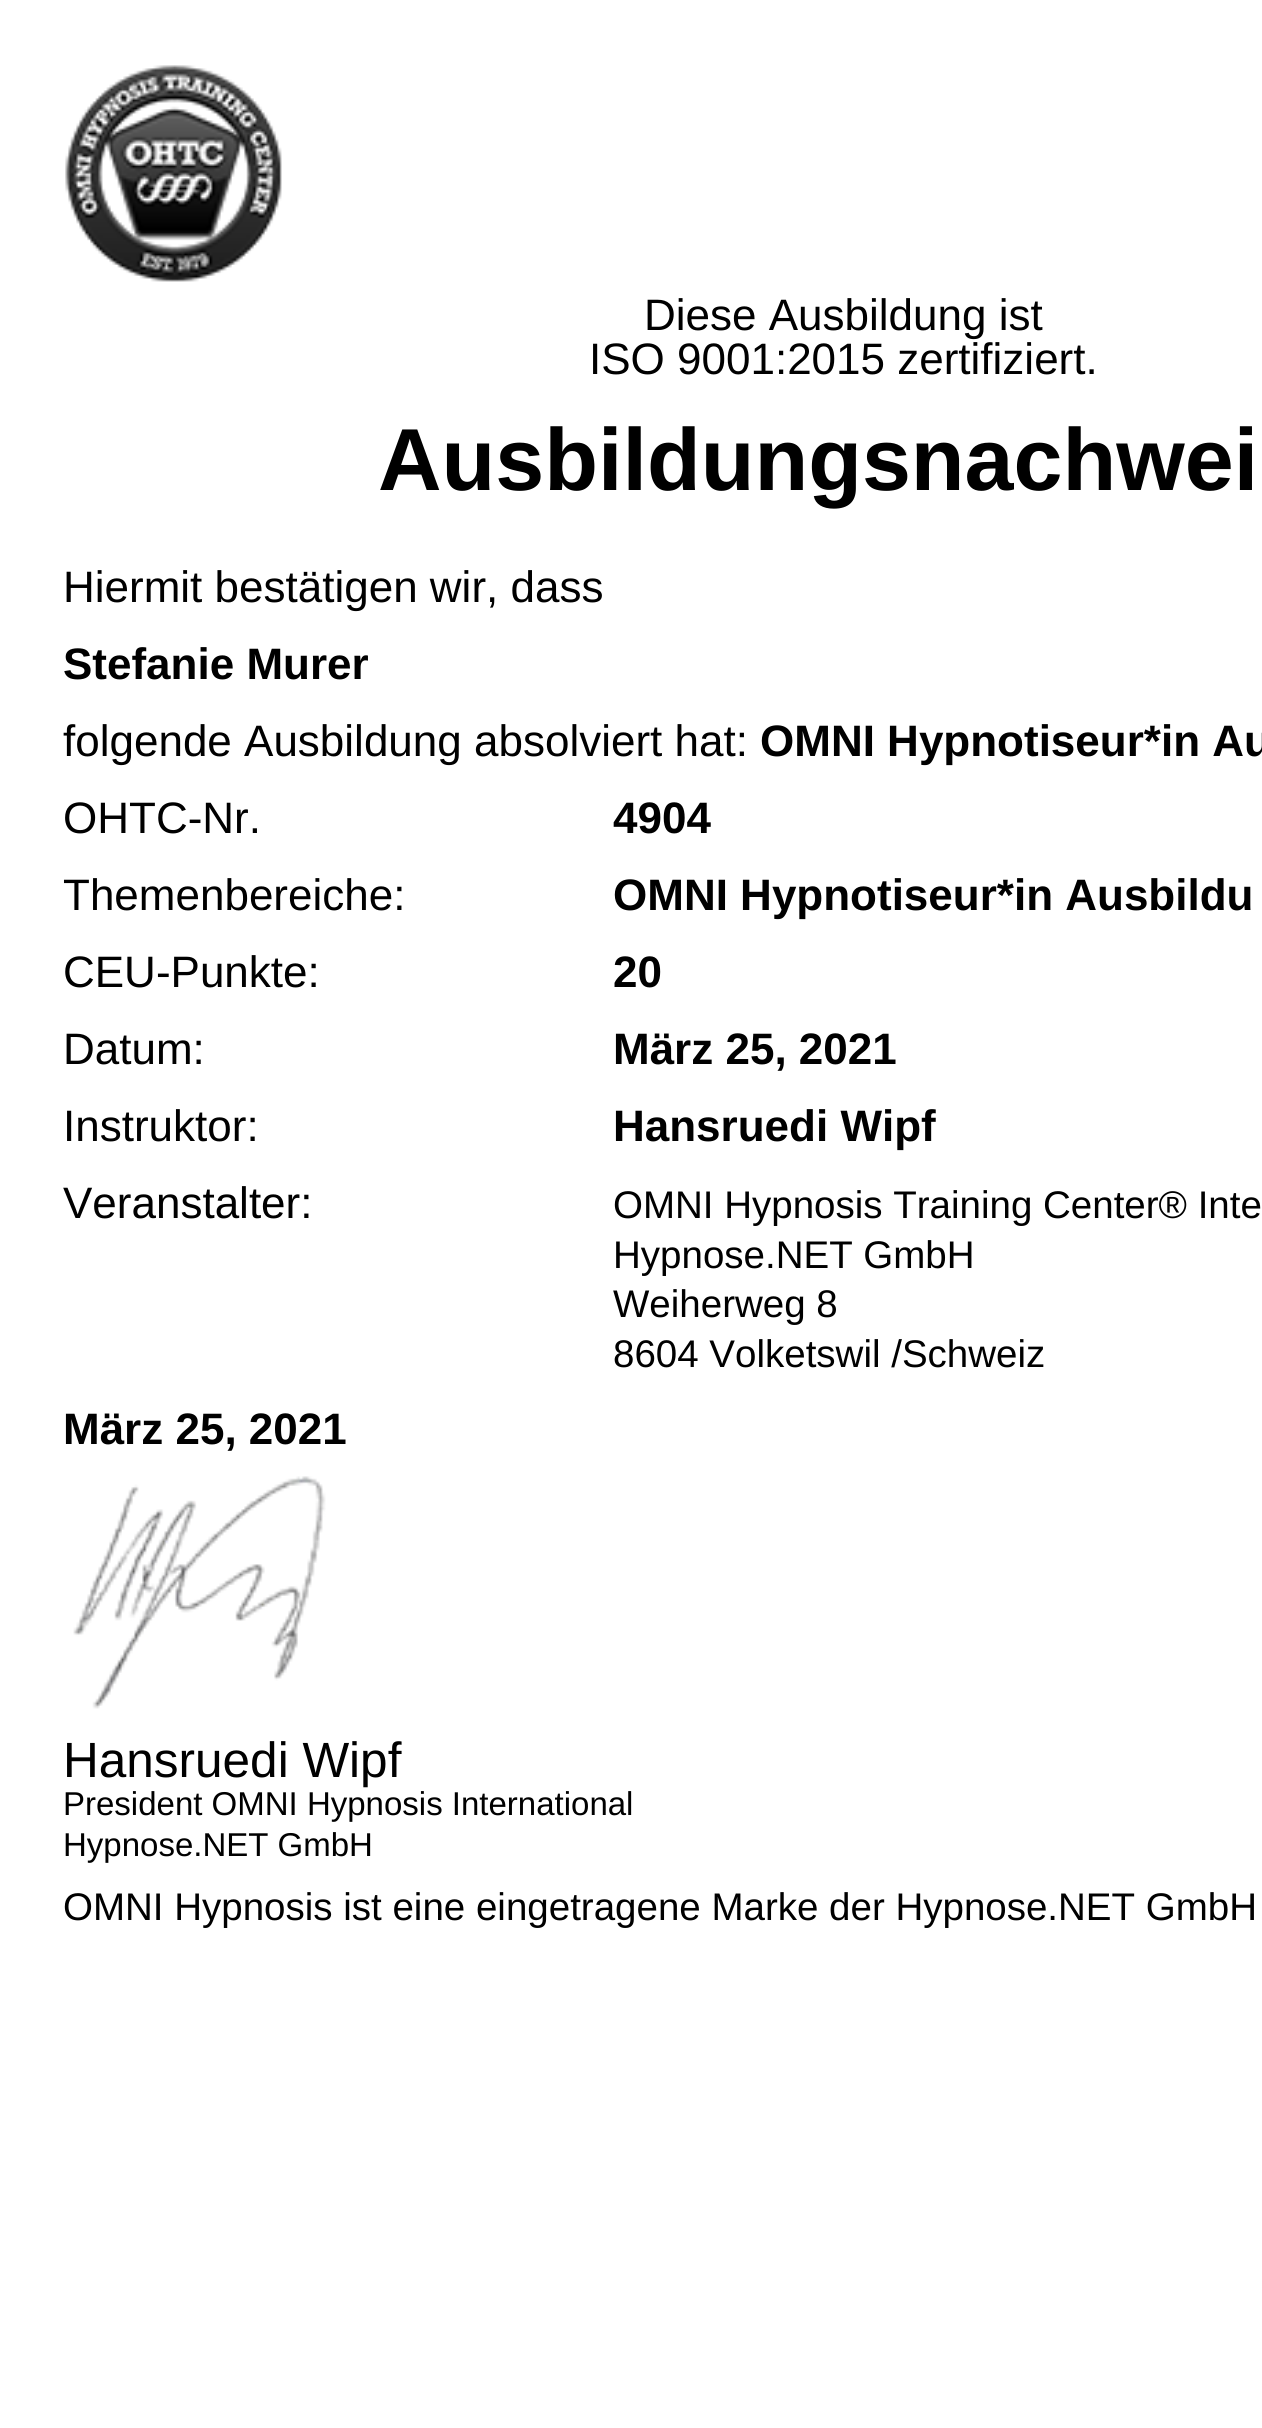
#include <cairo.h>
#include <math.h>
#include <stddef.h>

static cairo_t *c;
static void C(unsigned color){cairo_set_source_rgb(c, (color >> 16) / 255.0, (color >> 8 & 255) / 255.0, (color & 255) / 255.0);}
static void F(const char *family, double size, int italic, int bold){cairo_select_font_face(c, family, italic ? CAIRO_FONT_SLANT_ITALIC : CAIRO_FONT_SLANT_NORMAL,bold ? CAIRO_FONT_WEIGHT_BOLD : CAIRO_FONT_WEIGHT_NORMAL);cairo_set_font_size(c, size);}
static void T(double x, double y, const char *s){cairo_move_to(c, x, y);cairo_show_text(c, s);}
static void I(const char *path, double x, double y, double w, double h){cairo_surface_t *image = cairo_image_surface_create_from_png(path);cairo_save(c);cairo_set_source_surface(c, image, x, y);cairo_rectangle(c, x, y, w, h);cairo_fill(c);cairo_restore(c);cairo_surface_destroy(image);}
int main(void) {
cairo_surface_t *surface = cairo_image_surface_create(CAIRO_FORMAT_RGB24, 1262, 2428);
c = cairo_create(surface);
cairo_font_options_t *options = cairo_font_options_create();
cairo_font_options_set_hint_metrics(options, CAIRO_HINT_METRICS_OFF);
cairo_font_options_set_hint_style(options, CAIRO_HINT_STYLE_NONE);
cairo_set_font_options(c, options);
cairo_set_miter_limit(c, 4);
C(0xffffff);
cairo_paint(c);
I("1.png",65,65,217,217);
F("Liberation Sans",44,0,0);
C(0x000000);
T(644,330,"Diese Ausbildung ist");
T(589,374,"ISO 9001:2015 zertifiziert.");
F("Liberation Sans",88,0,1);
T(378,490,"Ausbildungsnachwei");
F("Liberation Sans",44,0,0);
T(63,602,"Hiermit bestätigen wir, dass");
F("Liberation Sans",44,0,1);
T(63,679,"Stefanie Murer");
F("Liberation Sans",44,0,0);
T(63,756,"folgende Ausbildung absolviert hat:");
F("Liberation Sans",44,0,1);
T(760,756,"OMNI Hypnotiseur*in Au");
F("Liberation Sans",44,0,0);
T(63,833,"OHTC-Nr.");
F("Liberation Sans",44,0,1);
T(613,833,"4904");
F("Liberation Sans",44,0,0);
T(63,910,"Themenbereiche:");
F("Liberation Sans",44,0,1);
T(613,910,"OMNI Hypnotiseur*in Ausbildu");
F("Liberation Sans",44,0,0);
T(63,987,"CEU-Punkte:");
F("Liberation Sans",44,0,1);
T(613,987,"20");
F("Liberation Sans",44,0,0);
T(63,1064,"Datum:");
F("Liberation Sans",44,0,1);
T(613,1064,"März 25, 2021");
F("Liberation Sans",44,0,0);
T(63,1141,"Instruktor:");
F("Liberation Sans",44,0,1);
T(613,1141,"Hansruedi Wipf");
F("Liberation Sans",44,0,0);
T(63,1218,"Veranstalter:");
F("Liberation Sans",38.5,0,0);
T(613,1218,"OMNI Hypnosis Training Center® Inte");
T(613,1268,"Hypnose.NET GmbH");
T(613,1317,"Weiherweg 8");
T(613,1367,"8604 Volketswil /Schweiz");
F("Liberation Sans",44,0,1);
T(63,1444,"März 25, 2021");
I("2.png",73,1476,253,233);
F("Liberation Sans",49.5,0,0);
T(63,1777,"Hansruedi Wipf");
F("Liberation Sans",33,0,0);
T(63,1815,"President OMNI Hypnosis International");
T(63,1856,"Hypnose.NET GmbH");
F("Liberation Sans",38.5,0,0);
T(63,1920,"OMNI Hypnosis ist eine eingetragene Marke der Hypnose.NET GmbH");
cairo_surface_write_to_png(surface, "o.png");
cairo_font_options_destroy(options);
cairo_destroy(c);
cairo_surface_destroy(surface);
return 0;
}
